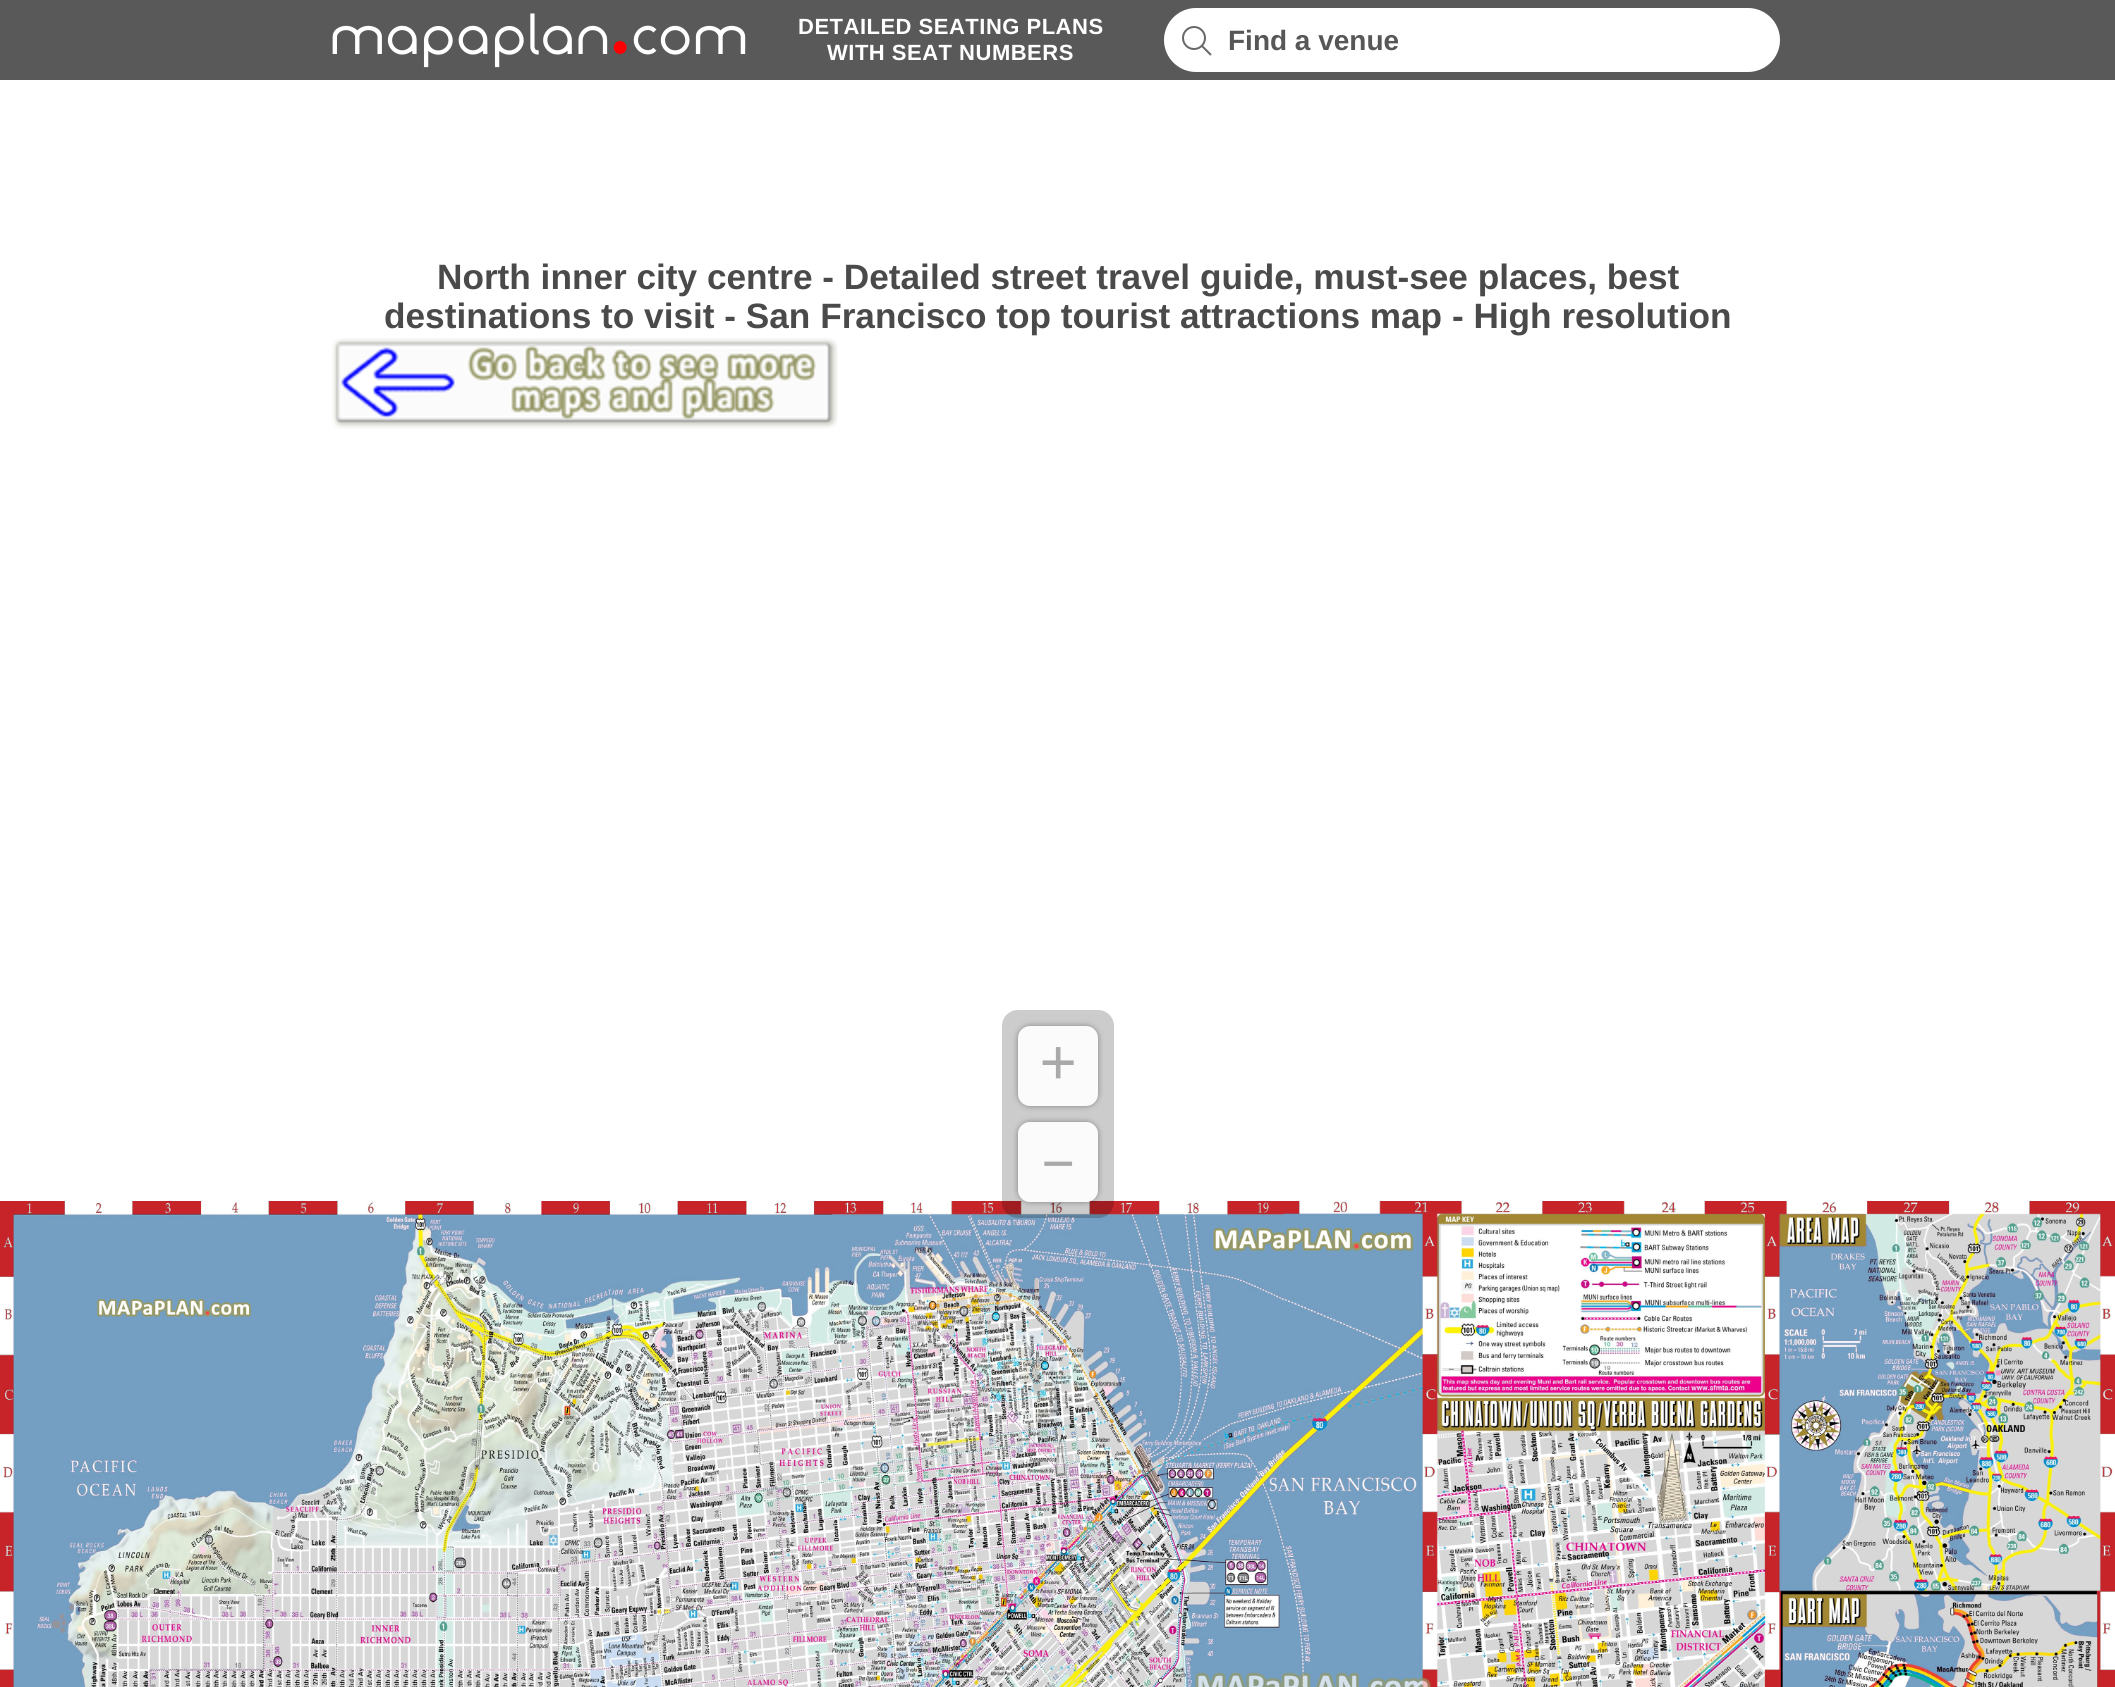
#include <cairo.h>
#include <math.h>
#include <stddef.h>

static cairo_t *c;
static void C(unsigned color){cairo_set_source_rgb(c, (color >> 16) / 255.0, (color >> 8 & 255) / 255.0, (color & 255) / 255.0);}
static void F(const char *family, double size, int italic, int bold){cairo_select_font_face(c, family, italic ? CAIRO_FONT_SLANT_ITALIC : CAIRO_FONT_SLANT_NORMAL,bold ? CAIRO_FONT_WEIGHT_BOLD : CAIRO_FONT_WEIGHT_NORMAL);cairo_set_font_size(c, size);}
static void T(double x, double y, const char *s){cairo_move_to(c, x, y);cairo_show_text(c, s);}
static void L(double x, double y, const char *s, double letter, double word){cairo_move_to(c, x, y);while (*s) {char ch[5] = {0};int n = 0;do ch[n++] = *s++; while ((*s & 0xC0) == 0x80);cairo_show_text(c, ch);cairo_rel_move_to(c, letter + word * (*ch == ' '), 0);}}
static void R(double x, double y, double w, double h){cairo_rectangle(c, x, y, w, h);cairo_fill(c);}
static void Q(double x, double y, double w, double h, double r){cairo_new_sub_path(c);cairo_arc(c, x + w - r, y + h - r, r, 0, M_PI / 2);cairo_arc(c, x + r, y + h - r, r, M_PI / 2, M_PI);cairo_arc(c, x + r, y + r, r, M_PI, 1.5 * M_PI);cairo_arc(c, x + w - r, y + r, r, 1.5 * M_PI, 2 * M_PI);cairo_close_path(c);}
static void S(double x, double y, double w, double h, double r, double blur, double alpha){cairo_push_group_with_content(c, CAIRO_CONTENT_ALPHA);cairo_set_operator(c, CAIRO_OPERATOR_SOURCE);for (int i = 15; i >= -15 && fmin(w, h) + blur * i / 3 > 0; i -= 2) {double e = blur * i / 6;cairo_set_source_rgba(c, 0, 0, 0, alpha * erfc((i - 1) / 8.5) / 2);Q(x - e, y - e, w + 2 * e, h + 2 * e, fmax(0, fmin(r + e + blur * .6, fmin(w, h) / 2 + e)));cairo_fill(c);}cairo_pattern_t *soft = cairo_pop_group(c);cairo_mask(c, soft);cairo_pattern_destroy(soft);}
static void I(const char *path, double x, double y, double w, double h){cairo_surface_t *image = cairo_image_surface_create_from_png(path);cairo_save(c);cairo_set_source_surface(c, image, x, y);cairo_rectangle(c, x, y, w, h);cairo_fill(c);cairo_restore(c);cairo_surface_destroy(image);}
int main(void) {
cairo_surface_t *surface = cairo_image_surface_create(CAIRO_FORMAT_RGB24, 2115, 1687);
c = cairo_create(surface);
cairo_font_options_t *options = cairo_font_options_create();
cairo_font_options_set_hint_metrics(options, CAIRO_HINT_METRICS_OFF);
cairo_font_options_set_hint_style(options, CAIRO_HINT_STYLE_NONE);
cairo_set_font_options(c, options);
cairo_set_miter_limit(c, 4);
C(0xffffff);
cairo_paint(c);
C(0x595959);
R(0,0,2115,80);
F("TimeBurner",52,0,1);
C(0xffffff);
L(330,54,"mapaplan",4,0);
F("TimeBurner",30,0,1);
C(0xff0000);
L(612,54,".",4,0);
F("TimeBurner",52,0,1);
C(0xffffff);
L(632,54,"com",4,0);
F("Liberation Sans",22,0,1);
L(798,34,"DETAILED SEATING PLANS",.5,0);
L(827,60,"WITH SEAT NUMBERS",.5,0);
Q(1164,8,616,64,32);
cairo_fill(c);
I("1.png",1182,26,30,30);
F("Liberation Sans",28,0,1);
C(0x575757);
T(1228,50,"Find a venue");
F("Liberation Sans",35.2,0,1);
C(0x4a4a4a);
T(437,289,"North inner city centre - Detailed street travel guide, must-see places, best");
T(384,328,"destinations to visit - San Francisco top tourist attractions map - High resolution");
I("2.png",332,338,506,91);
I("3.png",0,1201,2115,486);
cairo_set_source_rgba(c,0,0,0,0.2);
Q(1002,1010,112,208,16);
cairo_fill(c);
C(0x101010);
S(1018,1026,80,80,12,3,.4);
C(0xfbfbfb);
Q(1018,1026,80,80,12);
cairo_fill(c);
F("Liberation Mono",64,0,0);
C(0xa9a9a9);
T(1039,1084,"+");
cairo_save(c);
cairo_set_fill_rule(c,CAIRO_FILL_RULE_EVEN_ODD);
cairo_new_path(c);
cairo_move_to(c,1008,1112);
cairo_line_to(c,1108,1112);
cairo_line_to(c,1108,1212);
cairo_line_to(c,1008,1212);
cairo_close_path(c);
cairo_move_to(c,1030,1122);
cairo_line_to(c,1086,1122);
cairo_curve_to(c,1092.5,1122,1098,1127.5,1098,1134);
cairo_line_to(c,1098,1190);
cairo_curve_to(c,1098,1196.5,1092.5,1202,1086,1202);
cairo_line_to(c,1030,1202);
cairo_curve_to(c,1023.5,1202,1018,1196.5,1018,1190);
cairo_line_to(c,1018,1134);
cairo_curve_to(c,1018,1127.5,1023.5,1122,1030,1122);
cairo_close_path(c);
cairo_clip(c);
C(0x000000);
S(1018,1122,80,80,12,3,.37);
cairo_restore(c);
cairo_set_source_rgba(c,1,1,1,0.92);
Q(1018,1122,80,80,12);
cairo_fill(c);
C(0xa9a9a9);
T(1039,1180,"–");
cairo_surface_write_to_png(surface, "o.png");
cairo_font_options_destroy(options);
cairo_destroy(c);
cairo_surface_destroy(surface);
return 0;
}
